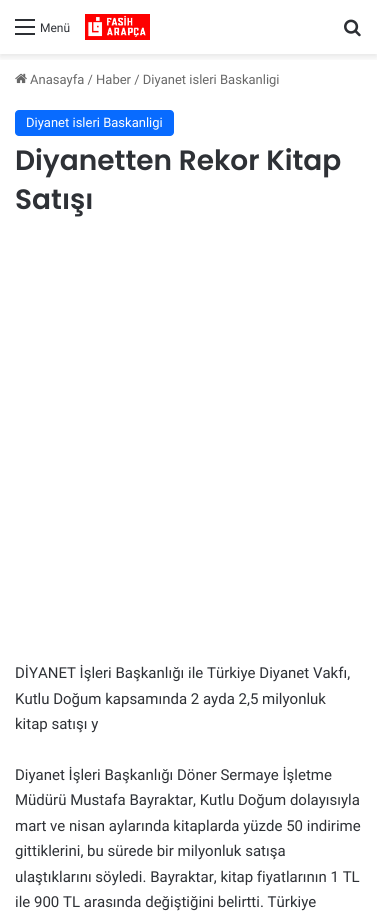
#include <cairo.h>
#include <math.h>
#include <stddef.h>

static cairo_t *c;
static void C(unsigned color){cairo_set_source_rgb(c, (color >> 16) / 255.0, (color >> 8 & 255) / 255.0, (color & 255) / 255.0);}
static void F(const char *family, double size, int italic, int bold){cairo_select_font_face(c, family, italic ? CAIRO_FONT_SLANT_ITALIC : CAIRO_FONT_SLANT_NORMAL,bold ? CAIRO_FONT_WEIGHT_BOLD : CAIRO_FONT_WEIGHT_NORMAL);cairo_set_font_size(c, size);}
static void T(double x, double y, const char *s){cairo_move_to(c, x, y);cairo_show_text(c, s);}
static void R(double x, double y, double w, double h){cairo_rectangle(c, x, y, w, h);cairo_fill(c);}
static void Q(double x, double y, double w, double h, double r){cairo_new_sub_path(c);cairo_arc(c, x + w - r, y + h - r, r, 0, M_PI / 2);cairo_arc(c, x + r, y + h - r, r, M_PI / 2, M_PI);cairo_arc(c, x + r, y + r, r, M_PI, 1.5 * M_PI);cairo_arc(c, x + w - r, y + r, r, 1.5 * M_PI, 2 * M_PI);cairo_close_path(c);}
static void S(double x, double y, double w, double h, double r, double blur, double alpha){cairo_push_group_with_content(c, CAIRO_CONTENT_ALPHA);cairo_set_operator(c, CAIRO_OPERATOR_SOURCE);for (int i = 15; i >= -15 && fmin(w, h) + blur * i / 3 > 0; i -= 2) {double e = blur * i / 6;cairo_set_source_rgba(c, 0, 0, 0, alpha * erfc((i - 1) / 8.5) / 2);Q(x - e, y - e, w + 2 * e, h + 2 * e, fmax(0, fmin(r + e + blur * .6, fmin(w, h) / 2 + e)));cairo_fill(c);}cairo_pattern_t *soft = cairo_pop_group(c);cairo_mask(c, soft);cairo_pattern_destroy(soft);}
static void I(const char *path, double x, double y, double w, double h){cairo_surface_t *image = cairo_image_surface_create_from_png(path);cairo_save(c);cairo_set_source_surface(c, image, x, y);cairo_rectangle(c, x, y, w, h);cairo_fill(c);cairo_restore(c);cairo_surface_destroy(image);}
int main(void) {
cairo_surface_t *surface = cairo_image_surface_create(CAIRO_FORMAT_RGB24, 377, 915);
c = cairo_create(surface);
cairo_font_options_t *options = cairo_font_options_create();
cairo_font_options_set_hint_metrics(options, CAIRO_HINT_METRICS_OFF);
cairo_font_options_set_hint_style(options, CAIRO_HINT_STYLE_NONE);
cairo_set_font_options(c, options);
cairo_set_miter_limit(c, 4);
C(0xffffff);
cairo_paint(c);
cairo_save(c);
cairo_rectangle(c,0,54,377,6);
cairo_clip(c);
C(0x000000);
S(0,3,377,54,0,3.5,.1);
cairo_restore(c);
C(0x2c2f34);
R(15,26,20,2);
R(15,19,20,2);
R(15,33,20,2);
F("Roboto",12,0,0);
C(0x2e3136);
T(40,32,"Menü");
I("1.png",85,14,65,26);
I("2.png",344,19,17,18);
I("3.png",15,73,12,11);
F("Roboto",13,0,0);
C(0x686868);
T(30,84,"Anasayfa / Haber / Diyanet isleri Baskanligi");
C(0x086bff);
Q(15,110,159,26,4);
cairo_fill(c);
C(0xffffff);
T(26,127,"Diyanet isleri Baskanligi");
F("Poppins SemiBold",28,0,0);
C(0x2e3136);
T(15,170,"Diyanetten Rekor Kitap");
T(15,209,"Satışı");
F("Roboto",15,0,0);
T(15,678,"DİYANET İşleri Başkanlığı ile Türkiye Diyanet Vakfı,");
T(15,704,"Kutlu Doğum kapsamında 2 ayda 2,5 milyonluk");
T(15,729,"kitap satışı y");
T(15,780,"Diyanet İşleri Başkanlığı Döner Sermaye İşletme");
T(15,805,"Müdürü Mustafa Bayraktar, Kutlu Doğum dolayısıyla");
T(15,831,"mart ve nisan aylarında kitaplarda yüzde 50 indirime");
T(15,856,"gittiklerini, bu sürede bir milyonluk satışa");
T(15,882,"ulaştıklarını söyledi. Bayraktar, kitap fiyatlarının 1 TL");
T(15,907,"ile 900 TL arasında değiştiğini belirtti. Türkiye");
cairo_surface_write_to_png(surface, "o.png");
cairo_font_options_destroy(options);
cairo_destroy(c);
cairo_surface_destroy(surface);
return 0;
}
